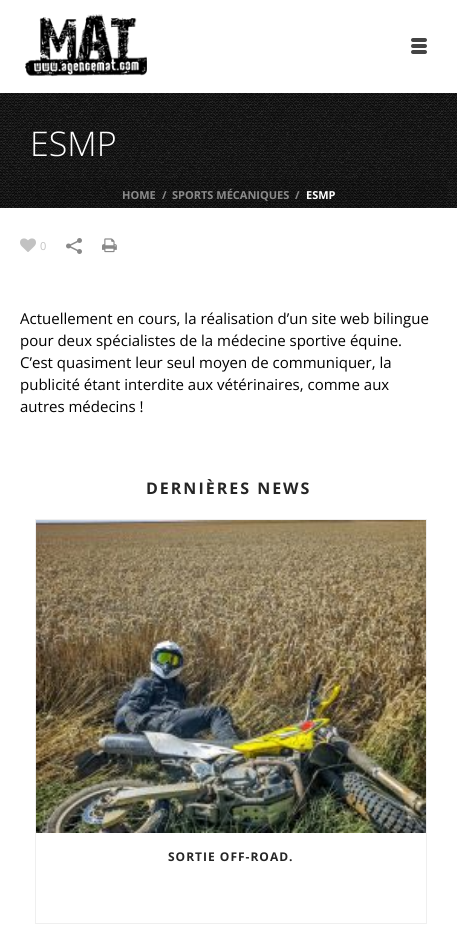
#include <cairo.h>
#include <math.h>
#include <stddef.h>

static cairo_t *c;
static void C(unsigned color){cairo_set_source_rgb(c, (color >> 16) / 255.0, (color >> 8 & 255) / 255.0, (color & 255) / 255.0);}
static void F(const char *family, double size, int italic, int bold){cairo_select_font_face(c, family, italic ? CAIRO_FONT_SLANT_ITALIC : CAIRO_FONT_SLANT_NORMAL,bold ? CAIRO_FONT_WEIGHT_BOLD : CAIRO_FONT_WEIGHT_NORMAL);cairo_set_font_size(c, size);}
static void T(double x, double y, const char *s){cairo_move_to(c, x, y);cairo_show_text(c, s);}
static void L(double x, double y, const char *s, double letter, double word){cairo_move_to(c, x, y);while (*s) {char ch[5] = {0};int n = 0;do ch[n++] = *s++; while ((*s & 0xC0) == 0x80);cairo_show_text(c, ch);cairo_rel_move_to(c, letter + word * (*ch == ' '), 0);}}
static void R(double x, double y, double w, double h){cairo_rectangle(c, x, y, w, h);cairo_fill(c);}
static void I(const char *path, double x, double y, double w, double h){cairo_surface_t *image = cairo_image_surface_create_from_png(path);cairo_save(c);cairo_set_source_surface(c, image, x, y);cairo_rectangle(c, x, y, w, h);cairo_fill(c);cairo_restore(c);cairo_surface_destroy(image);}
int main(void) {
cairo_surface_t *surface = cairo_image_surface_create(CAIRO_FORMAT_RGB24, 457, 926);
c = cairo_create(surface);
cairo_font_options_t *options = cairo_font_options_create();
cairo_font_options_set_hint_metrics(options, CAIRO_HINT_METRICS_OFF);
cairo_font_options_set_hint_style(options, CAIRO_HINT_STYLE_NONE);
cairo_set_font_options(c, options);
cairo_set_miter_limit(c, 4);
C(0xffffff);
cairo_paint(c);
I("1.png",0,93,457,115);
I("2.png",25,14,122,63);
I("3.png",411,38,16,16);
F("Open Sans Light",34,0,0);
C(0xffffff);
T(30,156,"ESMP");
cairo_set_source_rgba(c,0,0,0,0.1);
R(10,179,437,29);
F("Open Sans",11,0,1);
C(0x8a8a8a);
T(122,199,"HOME");
T(162,199,"/");
T(172,199,"SPORTS MÉCANIQUES");
T(295,199,"/");
C(0xffffff);
T(306,199,"ESMP");
I("4.png",20,238,16,14);
F("Open Sans",11,0,0);
C(0xc2c2c2);
T(40,250,"0");
I("5.png",66,238,16,16);
I("6.png",102,238,15,15);
F("Open Sans",15,0,0);
C(0x000000);
T(20,324,"Actuellement en cours, la réalisation d’un site web bilingue");
T(20,346,"pour deux spécialistes de la médecine sportive équine.");
T(20,368,"C’est quasiment leur seul moyen de communiquer, la");
T(20,390,"publicité étant interdite aux vétérinaires, comme aux");
T(20,412,"autres médecins !");
F("Open Sans",16,0,1);
C(0x252525);
L(146,494,"DERNIÈRES NEWS",2,0);
cairo_rectangle(c,35.5,519.5,391,404);
C(0xefefef);
cairo_set_line_width(c,1);
cairo_stroke(c);
I("7.png",36,520,390,313);
F("Open Sans",12,0,1);
C(0x252525);
L(168,861,"SORTIE OFF-ROAD.",1,0);
cairo_surface_write_to_png(surface, "o.png");
cairo_font_options_destroy(options);
cairo_destroy(c);
cairo_surface_destroy(surface);
return 0;
}
